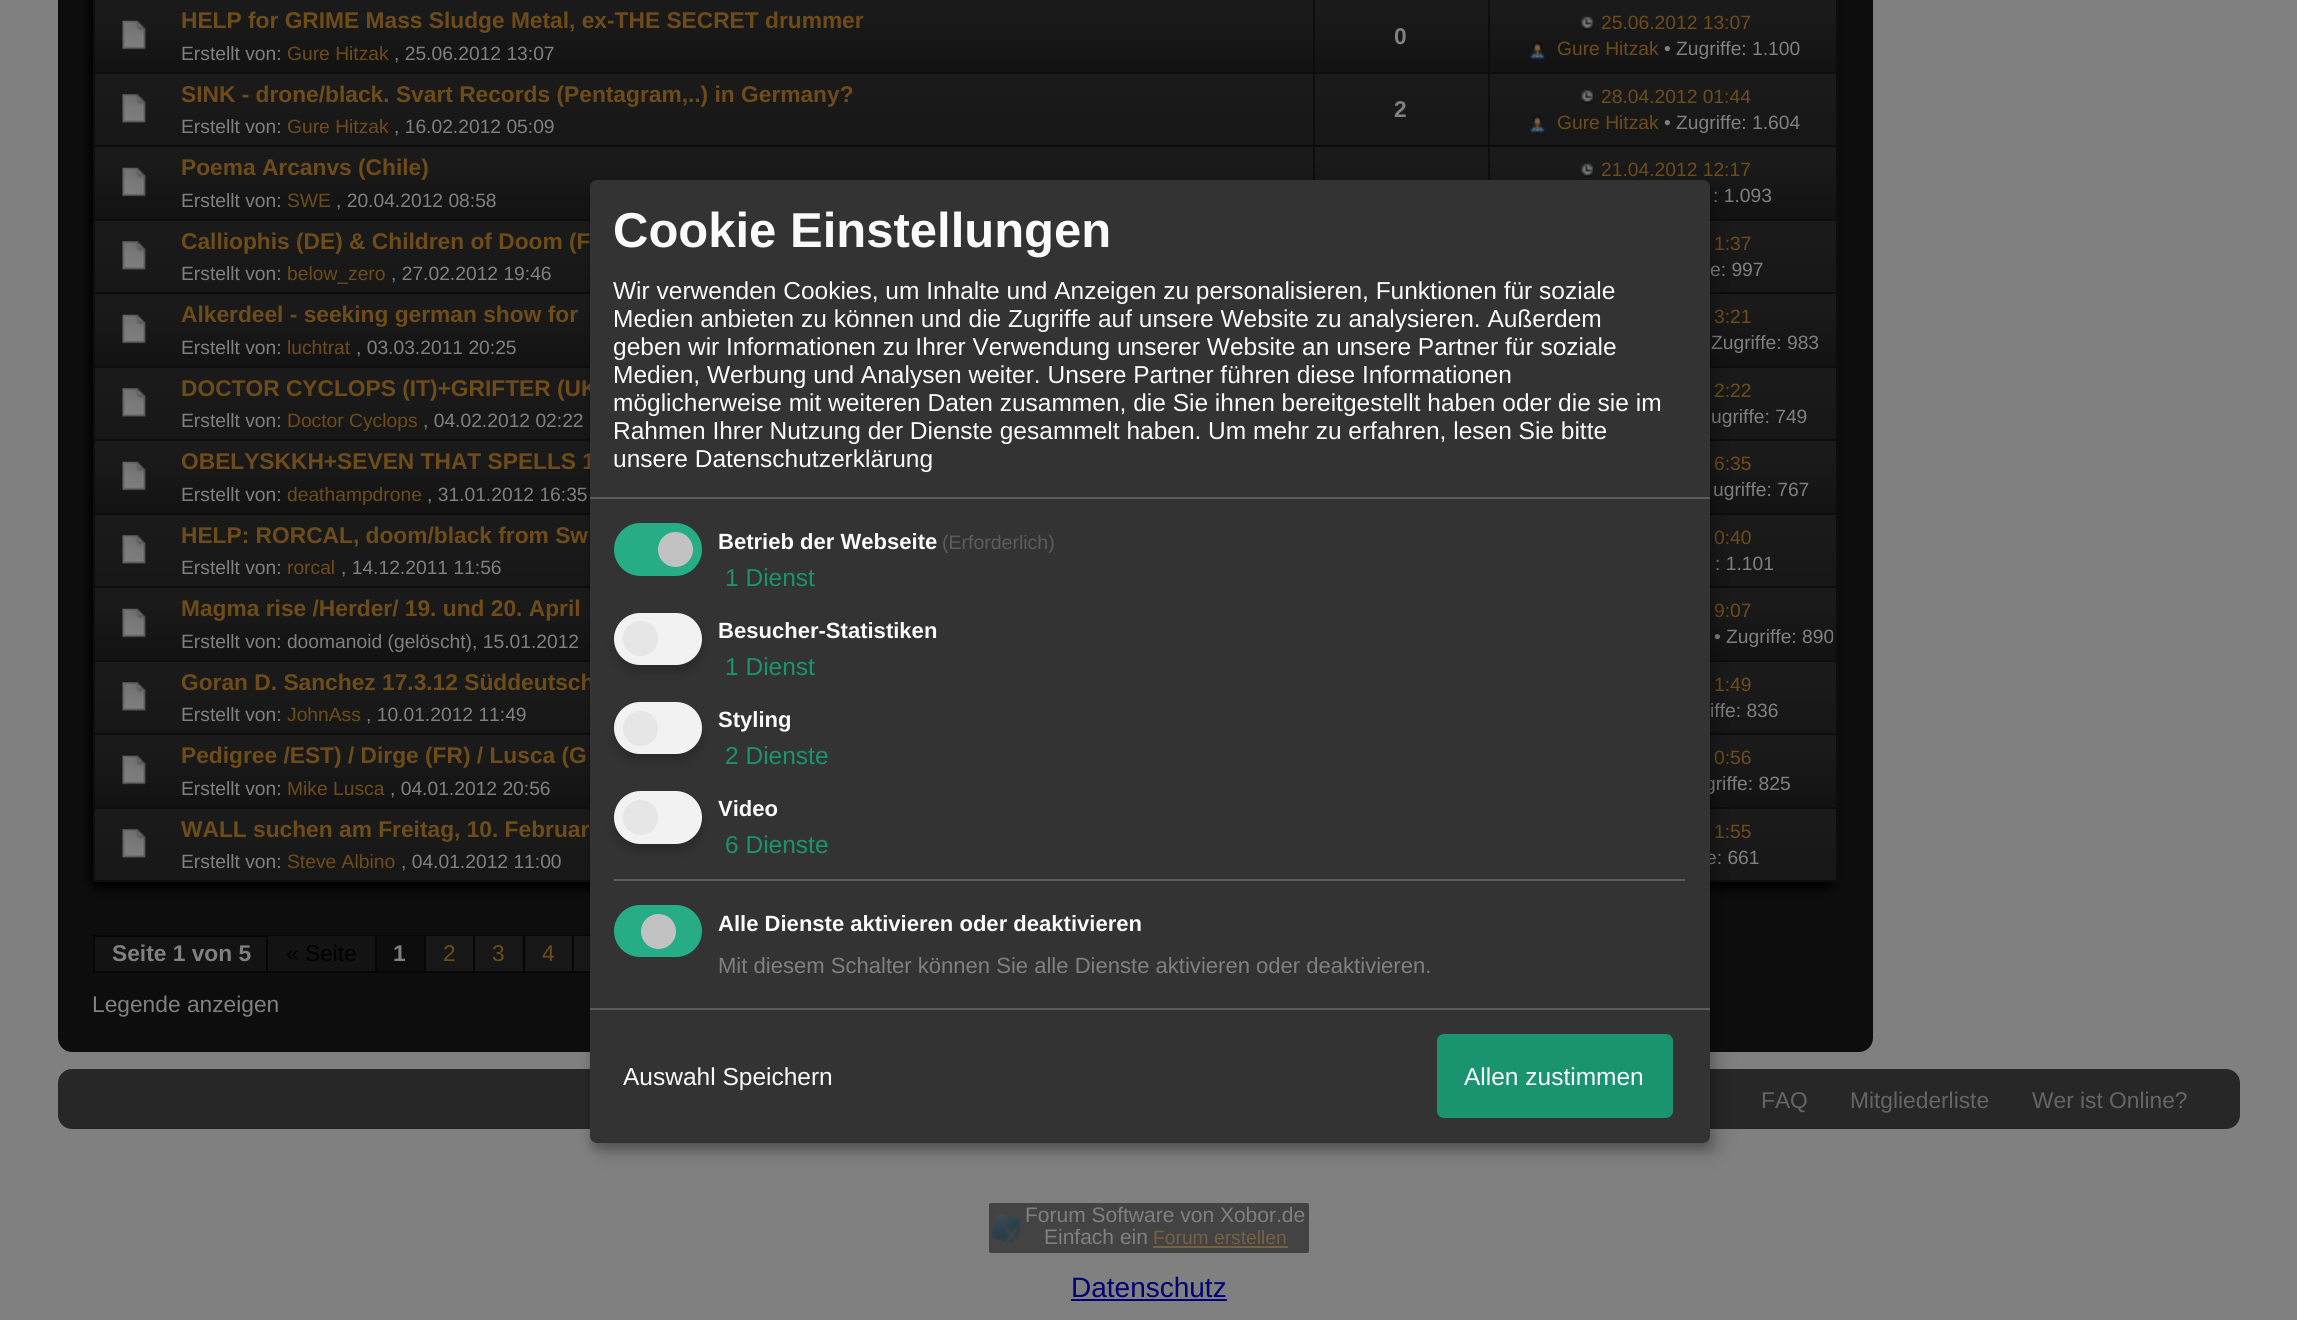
#include <cairo.h>
#include <math.h>
#include <stddef.h>

static cairo_t *c;
static void C(unsigned color){cairo_set_source_rgb(c, (color >> 16) / 255.0, (color >> 8 & 255) / 255.0, (color & 255) / 255.0);}
static void F(const char *family, double size, int italic, int bold){cairo_select_font_face(c, family, italic ? CAIRO_FONT_SLANT_ITALIC : CAIRO_FONT_SLANT_NORMAL,bold ? CAIRO_FONT_WEIGHT_BOLD : CAIRO_FONT_WEIGHT_NORMAL);cairo_set_font_size(c, size);}
static void T(double x, double y, const char *s){cairo_move_to(c, x, y);cairo_show_text(c, s);}
static void R(double x, double y, double w, double h){cairo_rectangle(c, x, y, w, h);cairo_fill(c);}
static void Q(double x, double y, double w, double h, double r){cairo_new_sub_path(c);cairo_arc(c, x + w - r, y + h - r, r, 0, M_PI / 2);cairo_arc(c, x + r, y + h - r, r, M_PI / 2, M_PI);cairo_arc(c, x + r, y + r, r, M_PI, 1.5 * M_PI);cairo_arc(c, x + w - r, y + r, r, 1.5 * M_PI, 2 * M_PI);cairo_close_path(c);}
static void S(double x, double y, double w, double h, double r, double blur, double alpha){cairo_push_group_with_content(c, CAIRO_CONTENT_ALPHA);cairo_set_operator(c, CAIRO_OPERATOR_SOURCE);for (int i = 15; i >= -15 && fmin(w, h) + blur * i / 3 > 0; i -= 2) {double e = blur * i / 6;cairo_set_source_rgba(c, 0, 0, 0, alpha * erfc((i - 1) / 8.5) / 2);Q(x - e, y - e, w + 2 * e, h + 2 * e, fmax(0, fmin(r + e + blur * .6, fmin(w, h) / 2 + e)));cairo_fill(c);}cairo_pattern_t *soft = cairo_pop_group(c);cairo_mask(c, soft);cairo_pattern_destroy(soft);}
static void I(const char *path, double x, double y, double w, double h){cairo_surface_t *image = cairo_image_surface_create_from_png(path);cairo_save(c);cairo_set_source_surface(c, image, x, y);cairo_rectangle(c, x, y, w, h);cairo_fill(c);cairo_restore(c);cairo_surface_destroy(image);}
int main(void) {
cairo_surface_t *surface = cairo_image_surface_create(CAIRO_FORMAT_RGB24, 2297, 1320);
c = cairo_create(surface);
cairo_font_options_t *options = cairo_font_options_create();
cairo_font_options_set_hint_metrics(options, CAIRO_HINT_METRICS_OFF);
cairo_font_options_set_hint_style(options, CAIRO_HINT_STYLE_NONE);
cairo_set_font_options(c, options);
cairo_set_miter_limit(c, 4);
cairo_pattern_t *gradient;
C(0x808080);
cairo_paint(c);
C(0x0d0d0d);
Q(58,-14,1815,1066,14);
cairo_fill(c);
C(0x000000);
S(89,-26,1745,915,11,5,1);
cairo_rectangle(c,94,-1,1743,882);
C(0x0d0d0d);
cairo_stroke(c);
gradient = cairo_pattern_create_linear(356,65,356,14);
cairo_pattern_add_color_stop_rgba(gradient,0,0.075,0.075,0.075,1);
cairo_pattern_add_color_stop_rgba(gradient,1,0.102,0.102,0.102,1);
cairo_set_source(c,gradient);
cairo_pattern_destroy(gradient);
R(95,0,1741,72);
C(0x0d0d0d);
R(95,72,1741,2);
I("1.png",122,20,24,30);
R(1313,0,2,74);
F("Liberation Sans",22.75,0,1);
C(0x6e4c1a);
T(181,28,"HELP for GRIME Mass Sludge Metal, ex-THE SECRET drummer");
F("Liberation Sans",19.25,0,0);
C(0x808080);
T(181,60,"Erstellt von:");
C(0x6e4c1a);
T(287,60,"Gure Hitzak");
C(0x808080);
T(394,60,", 25.06.2012 13:07");
C(0x0d0d0d);
R(1488,0,2,74);
F("Liberation Sans",22.75,0,1);
C(0x808080);
T(1394,44,"0");
I("2.png",1580,15,14,16);
F("Liberation Sans",19.25,0,0);
C(0x6e4c1a);
T(1601,29,"25.06.2012 13:07");
I("3.png",1529,41,17,20);
T(1557,55,"Gure Hitzak");
C(0x808080);
T(1664,55,"• Zugriffe: 1.100");
gradient = cairo_pattern_create_linear(356,138,356,88);
cairo_pattern_add_color_stop_rgba(gradient,0,0.09,0.09,0.09,1);
cairo_pattern_add_color_stop_rgba(gradient,1,0.102,0.102,0.102,1);
cairo_set_source(c,gradient);
cairo_pattern_destroy(gradient);
R(95,74,1741,71);
C(0x0d0d0d);
R(95,145,1741,2);
I("4.png",122,94,24,29);
R(1313,74,2,73);
F("Liberation Sans",22.75,0,1);
C(0x6e4c1a);
T(181,102,"SINK - drone/black. Svart Records (Pentagram,..) in Germany?");
F("Liberation Sans",19.25,0,0);
C(0x808080);
T(181,133,"Erstellt von:");
C(0x6e4c1a);
T(287,133,"Gure Hitzak");
C(0x808080);
T(394,133,", 16.02.2012 05:09");
C(0x0d0d0d);
R(1488,74,2,73);
F("Liberation Sans",22.75,0,1);
C(0x808080);
T(1394,117,"2");
I("5.png",1580,89,14,15);
F("Liberation Sans",19.25,0,0);
C(0x6e4c1a);
T(1601,103,"28.04.2012 01:44");
I("6.png",1529,115,17,19);
T(1557,129,"Gure Hitzak");
C(0x808080);
T(1664,129,"• Zugriffe: 1.604");
gradient = cairo_pattern_create_linear(356,212,356,161);
cairo_pattern_add_color_stop_rgba(gradient,0,0.075,0.075,0.075,1);
cairo_pattern_add_color_stop_rgba(gradient,1,0.102,0.102,0.102,1);
cairo_set_source(c,gradient);
cairo_pattern_destroy(gradient);
R(95,147,1741,72);
C(0x0d0d0d);
R(95,219,1741,2);
I("1.png",122,167,24,30);
R(1313,147,2,33);
F("Liberation Sans",22.75,0,1);
C(0x6e4c1a);
T(181,175,"Poema Arcanvs (Chile)");
F("Liberation Sans",19.25,0,0);
C(0x808080);
T(181,207,"Erstellt von:");
C(0x6e4c1a);
T(287,207,"SWE");
C(0x808080);
T(336,207,", 20.04.2012 08:58");
C(0x0d0d0d);
R(1488,147,2,33);
I("2.png",1580,162,14,16);
C(0x6e4c1a);
T(1601,176,"21.04.2012 12:17");
C(0x808080);
T(1713,202,": 1.093");
gradient = cairo_pattern_create_linear(356,285,356,235);
cairo_pattern_add_color_stop_rgba(gradient,0,0.09,0.09,0.09,1);
cairo_pattern_add_color_stop_rgba(gradient,1,0.102,0.102,0.102,1);
cairo_set_source(c,gradient);
cairo_pattern_destroy(gradient);
R(95,221,1741,71);
C(0x0d0d0d);
R(95,292,1741,2);
I("4.png",122,241,24,29);
F("Liberation Sans",22.75,0,1);
C(0x6e4c1a);
T(181,249,"Calliophis (DE) & Children of Doom (F");
F("Liberation Sans",19.25,0,0);
C(0x808080);
T(181,280,"Erstellt von:");
C(0x6e4c1a);
T(287,280,"below_zero");
C(0x808080);
T(391,280,", 27.02.2012 19:46");
C(0x6e4c1a);
T(1714,250,"1:37");
C(0x808080);
T(1710,276,"e: 997");
gradient = cairo_pattern_create_linear(356,359,356,308);
cairo_pattern_add_color_stop_rgba(gradient,0,0.075,0.075,0.075,1);
cairo_pattern_add_color_stop_rgba(gradient,1,0.102,0.102,0.102,1);
cairo_set_source(c,gradient);
cairo_pattern_destroy(gradient);
R(95,294,1741,72);
C(0x0d0d0d);
R(95,366,1741,2);
I("1.png",122,314,24,30);
F("Liberation Sans",22.75,0,1);
C(0x6e4c1a);
T(181,322,"Alkerdeel - seeking german show for");
F("Liberation Sans",19.25,0,0);
C(0x808080);
T(181,354,"Erstellt von:");
C(0x6e4c1a);
T(287,354,"luchtrat");
C(0x808080);
T(356,354,", 03.03.2011 20:25");
C(0x6e4c1a);
T(1714,323,"3:21");
C(0x808080);
T(1711,349,"Zugriffe: 983");
gradient = cairo_pattern_create_linear(356,432,356,382);
cairo_pattern_add_color_stop_rgba(gradient,0,0.09,0.09,0.09,1);
cairo_pattern_add_color_stop_rgba(gradient,1,0.102,0.102,0.102,1);
cairo_set_source(c,gradient);
cairo_pattern_destroy(gradient);
R(95,368,1741,71);
C(0x0d0d0d);
R(95,439,1741,2);
I("4.png",122,388,24,29);
F("Liberation Sans",22.75,0,1);
C(0x6e4c1a);
T(181,396,"DOCTOR CYCLOPS (IT)+GRIFTER (UK");
F("Liberation Sans",19.25,0,0);
C(0x808080);
T(181,427,"Erstellt von:");
C(0x6e4c1a);
T(287,427,"Doctor Cyclops");
C(0x808080);
T(423,427,", 04.02.2012 02:22");
C(0x6e4c1a);
T(1714,397,"2:22");
C(0x808080);
T(1711,423,"ugriffe: 749");
gradient = cairo_pattern_create_linear(356,506,356,455);
cairo_pattern_add_color_stop_rgba(gradient,0,0.075,0.075,0.075,1);
cairo_pattern_add_color_stop_rgba(gradient,1,0.102,0.102,0.102,1);
cairo_set_source(c,gradient);
cairo_pattern_destroy(gradient);
R(95,441,1741,72);
C(0x0d0d0d);
R(95,513,1741,2);
I("1.png",122,461,24,30);
F("Liberation Sans",22.75,0,1);
C(0x6e4c1a);
T(181,469,"OBELYSKKH+SEVEN THAT SPELLS 1");
F("Liberation Sans",19.25,0,0);
C(0x808080);
T(181,501,"Erstellt von:");
C(0x6e4c1a);
T(287,501,"deathampdrone");
C(0x808080);
T(427,501,", 31.01.2012 16:35");
C(0x6e4c1a);
T(1714,470,"6:35");
C(0x808080);
T(1713,496,"ugriffe: 767");
gradient = cairo_pattern_create_linear(356,579,356,529);
cairo_pattern_add_color_stop_rgba(gradient,0,0.09,0.09,0.09,1);
cairo_pattern_add_color_stop_rgba(gradient,1,0.102,0.102,0.102,1);
cairo_set_source(c,gradient);
cairo_pattern_destroy(gradient);
R(95,515,1741,71);
C(0x0d0d0d);
R(95,586,1741,2);
I("4.png",122,535,24,29);
F("Liberation Sans",22.75,0,1);
C(0x6e4c1a);
T(181,543,"HELP: RORCAL, doom/black from Sw");
F("Liberation Sans",19.25,0,0);
C(0x808080);
T(181,574,"Erstellt von:");
C(0x6e4c1a);
T(287,574,"rorcal");
C(0x808080);
T(341,574,", 14.12.2011 11:56");
C(0x6e4c1a);
T(1714,544,"0:40");
C(0x808080);
T(1715,570,": 1.101");
gradient = cairo_pattern_create_linear(356,653,356,602);
cairo_pattern_add_color_stop_rgba(gradient,0,0.075,0.075,0.075,1);
cairo_pattern_add_color_stop_rgba(gradient,1,0.102,0.102,0.102,1);
cairo_set_source(c,gradient);
cairo_pattern_destroy(gradient);
R(95,588,1741,72);
C(0x0d0d0d);
R(95,660,1741,2);
I("1.png",122,608,24,30);
F("Liberation Sans",22.75,0,1);
C(0x6e4c1a);
T(181,616,"Magma rise /Herder/ 19. und 20. April");
F("Liberation Sans",19.25,0,0);
C(0x808080);
T(181,648,"Erstellt von: doomanoid (gelöscht), 15.01.2012");
C(0x6e4c1a);
T(1714,617,"9:07");
C(0x808080);
T(1714,643,"• Zugriffe: 890");
gradient = cairo_pattern_create_linear(356,726,356,676);
cairo_pattern_add_color_stop_rgba(gradient,0,0.09,0.09,0.09,1);
cairo_pattern_add_color_stop_rgba(gradient,1,0.102,0.102,0.102,1);
cairo_set_source(c,gradient);
cairo_pattern_destroy(gradient);
R(95,662,1741,71);
C(0x0d0d0d);
R(95,733,1741,2);
I("7.png",122,682,24,29);
F("Liberation Sans",22.75,0,1);
C(0x6e4c1a);
T(181,690,"Goran D. Sanchez 17.3.12 Süddeutsch");
F("Liberation Sans",19.25,0,0);
C(0x808080);
T(181,721,"Erstellt von:");
C(0x6e4c1a);
T(287,721,"JohnAss");
C(0x808080);
T(366,721,", 10.01.2012 11:49");
C(0x6e4c1a);
T(1714,691,"1:49");
C(0x808080);
T(1710,717,"iffe: 836");
gradient = cairo_pattern_create_linear(356,800,356,749);
cairo_pattern_add_color_stop_rgba(gradient,0,0.075,0.075,0.075,1);
cairo_pattern_add_color_stop_rgba(gradient,1,0.102,0.102,0.102,1);
cairo_set_source(c,gradient);
cairo_pattern_destroy(gradient);
R(95,735,1741,72);
C(0x0d0d0d);
R(95,807,1741,2);
I("8.png",122,755,24,30);
F("Liberation Sans",22.75,0,1);
C(0x6e4c1a);
T(181,763,"Pedigree /EST) / Dirge (FR) / Lusca (G");
F("Liberation Sans",19.25,0,0);
C(0x808080);
T(181,795,"Erstellt von:");
C(0x6e4c1a);
T(287,795,"Mike Lusca");
C(0x808080);
T(390,795,", 04.01.2012 20:56");
C(0x6e4c1a);
T(1714,764,"0:56");
C(0x808080);
T(1705,790,"griffe: 825");
gradient = cairo_pattern_create_linear(356,873,356,823);
cairo_pattern_add_color_stop_rgba(gradient,0,0.09,0.09,0.09,1);
cairo_pattern_add_color_stop_rgba(gradient,1,0.102,0.102,0.102,1);
cairo_set_source(c,gradient);
cairo_pattern_destroy(gradient);
R(95,809,1741,71);
I("4.png",122,829,24,29);
F("Liberation Sans",22.75,0,1);
C(0x6e4c1a);
T(181,837,"WALL suchen am Freitag, 10. Februar");
F("Liberation Sans",19.25,0,0);
C(0x808080);
T(181,868,"Erstellt von:");
C(0x6e4c1a);
T(287,868,"Steve Albino");
C(0x808080);
T(401,868,", 04.01.2012 11:00");
C(0x6e4c1a);
T(1714,838,"1:55");
C(0x808080);
T(1706,864,"e: 661");
C(0x131313);
R(95,937,171,34);
cairo_rectangle(c,94,936,637,36);
C(0x060606);
cairo_stroke(c);
F("Liberation Sans",22.75,0,1);
C(0x808080);
T(112,961,"Seite 1 von 5");
C(0x131313);
R(268,936,107,35);
C(0x060606);
R(266,936,2,35);
F("Liberation Sans",22.75,0,0);
C(0x000000);
T(286,961,"« Seite");
C(0x0d0d0d);
R(377,936,47,1);
C(0x060606);
R(375,936,2,35);
F("Liberation Sans",22.75,0,1);
C(0x808080);
T(393,961,"1");
C(0x171717);
R(426,936,47,35);
C(0x060606);
R(424,936,2,35);
F("Liberation Sans",22.75,0,0);
C(0x6e4c1a);
T(443,961,"2");
C(0x171717);
R(475,936,48,35);
C(0x060606);
R(473,936,2,35);
C(0x6e4c1a);
T(492,961,"3");
C(0x171717);
R(525,936,47,35);
C(0x060606);
R(523,936,2,35);
C(0x6e4c1a);
T(542,961,"4");
C(0x171717);
R(574,936,16,35);
C(0x060606);
R(572,936,2,35);
C(0x808080);
T(92,1012,"Legende anzeigen");
C(0x272727);
Q(58,1069,2182,60,14);
cairo_fill(c);
C(0x000000);
S(599,189,1120,963,7,9,.19);
S(590,187,1120,963,7,5,.2);
C(0x333333);
Q(590,180,1120,963,7);
cairo_fill(c);
C(0x5c5c5c);
R(590,497,1120,2);
F("Liberation Sans",49,0,1);
C(0xfafafa);
T(613,247,"Cookie Einstellungen");
F("Liberation Sans",24.5,0,0);
T(613,299,"Wir verwenden Cookies, um Inhalte und Anzeigen zu personalisieren, Funktionen für soziale");
T(613,327,"Medien anbieten zu können und die Zugriffe auf unsere Website zu analysieren. Außerdem");
T(613,355,"geben wir Informationen zu Ihrer Verwendung unserer Website an unsere Partner für soziale");
T(613,383,"Medien, Werbung und Analysen weiter. Unsere Partner führen diese Informationen");
T(613,411,"möglicherweise mit weiteren Daten zusammen, die Sie ihnen bereitgestellt haben oder die sie im");
T(613,439,"Rahmen Ihrer Nutzung der Dienste gesammelt haben. Um mehr zu erfahren, lesen Sie bitte");
T(613,467,"unsere Datenschutzerklärung");
C(0x27ad85);
Q(614,523,88,53,26.5);
cairo_fill(c);
C(0xc2c2c2);
cairo_arc(c,675.5,549.5,17.5,0,2 * M_PI);
cairo_fill(c);
F("Liberation Sans",22.05,0,1);
C(0xfafafa);
T(718,549,"Betrieb der Webseite");
F("Liberation Sans",19.5,0,0);
C(0x5c5c5c);
T(942,549,"(Erforderlich)");
F("Liberation Sans",24.5,0,0);
C(0x1a936f);
T(725,586,"1 Dienst");
C(0x000000);
S(614,620,88,52,26,5,.2);
C(0xf2f2f2);
Q(614,613,88,52,26);
cairo_fill(c);
C(0xe6e6e6);
cairo_arc(c,640.5,638.5,17.5,0,2 * M_PI);
cairo_fill(c);
F("Liberation Sans",22.05,0,1);
C(0xfafafa);
T(718,638,"Besucher-Statistiken");
F("Liberation Sans",24.5,0,0);
C(0x1a936f);
T(725,675,"1 Dienst");
C(0x000000);
S(614,709,88,52,26,5,.2);
C(0xf2f2f2);
Q(614,702,88,52,26);
cairo_fill(c);
C(0xe6e6e6);
cairo_arc(c,640.5,728.5,17.5,0,2 * M_PI);
cairo_fill(c);
F("Liberation Sans",22.05,0,1);
C(0xfafafa);
T(718,727,"Styling");
F("Liberation Sans",24.5,0,0);
C(0x1a936f);
T(725,764,"2 Dienste");
C(0x000000);
S(614,798,88,53,26.5,5,.2);
C(0xf2f2f2);
Q(614,791,88,53,26.5);
cairo_fill(c);
C(0xe6e6e6);
cairo_arc(c,640.5,817.5,17.5,0,2 * M_PI);
cairo_fill(c);
F("Liberation Sans",22.05,0,1);
C(0xfafafa);
T(718,816,"Video");
F("Liberation Sans",24.5,0,0);
C(0x1a936f);
T(725,853,"6 Dienste");
C(0x5c5c5c);
R(614,879,1071,2);
C(0x27ad85);
Q(614,905,88,52,26);
cairo_fill(c);
C(0xc2c2c2);
cairo_arc(c,658.5,931.5,17.5,0,2 * M_PI);
cairo_fill(c);
F("Liberation Sans",22.05,0,1);
C(0xfafafa);
T(718,931,"Alle Dienste aktivieren oder deaktivieren");
F("Liberation Sans",22.05,0,0);
C(0x808080);
T(718,973,"Mit diesem Schalter können Sie alle Dienste aktivieren oder deaktivieren.");
C(0x5c5c5c);
R(590,1008,1120,2);
F("Liberation Sans",24.5,0,0);
C(0xfafafa);
T(623,1085,"Auswahl Speichern");
C(0x1a936f);
Q(1437,1034,236,84,7);
cairo_fill(c);
C(0xfafafa);
T(1464,1085,"Allen zustimmen");
F("Liberation Sans",22.75,0,0);
C(0x656565);
T(1761,1108,"FAQ");
T(1850,1108,"Mitgliederliste");
T(2032,1108,"Wer ist Online?");
C(0x434343);
Q(987,1201,324,54,9);
cairo_fill(c);
C(0x808080);
R(987,1201,324,2);
R(1309,1201,2,54);
R(987,1253,324,2);
R(987,1201,2,54);
I("9.png",992,1214,29,29);
F("Liberation Sans",21,0,0);
T(1025,1222,"Forum Software von Xobor.de");
T(1044,1244,"Einfach ein");
F("Liberation Sans",19.25,0,0);
C(0x756143);
T(1153,1244,"Forum erstellen");
R(1153,1246,135,2);
F("Liberation Sans",28,0,0);
C(0x000077);
T(1071,1297,"Datenschutz");
R(1071,1299,156,2);
cairo_surface_write_to_png(surface, "o.png");
cairo_font_options_destroy(options);
cairo_destroy(c);
cairo_surface_destroy(surface);
return 0;
}
